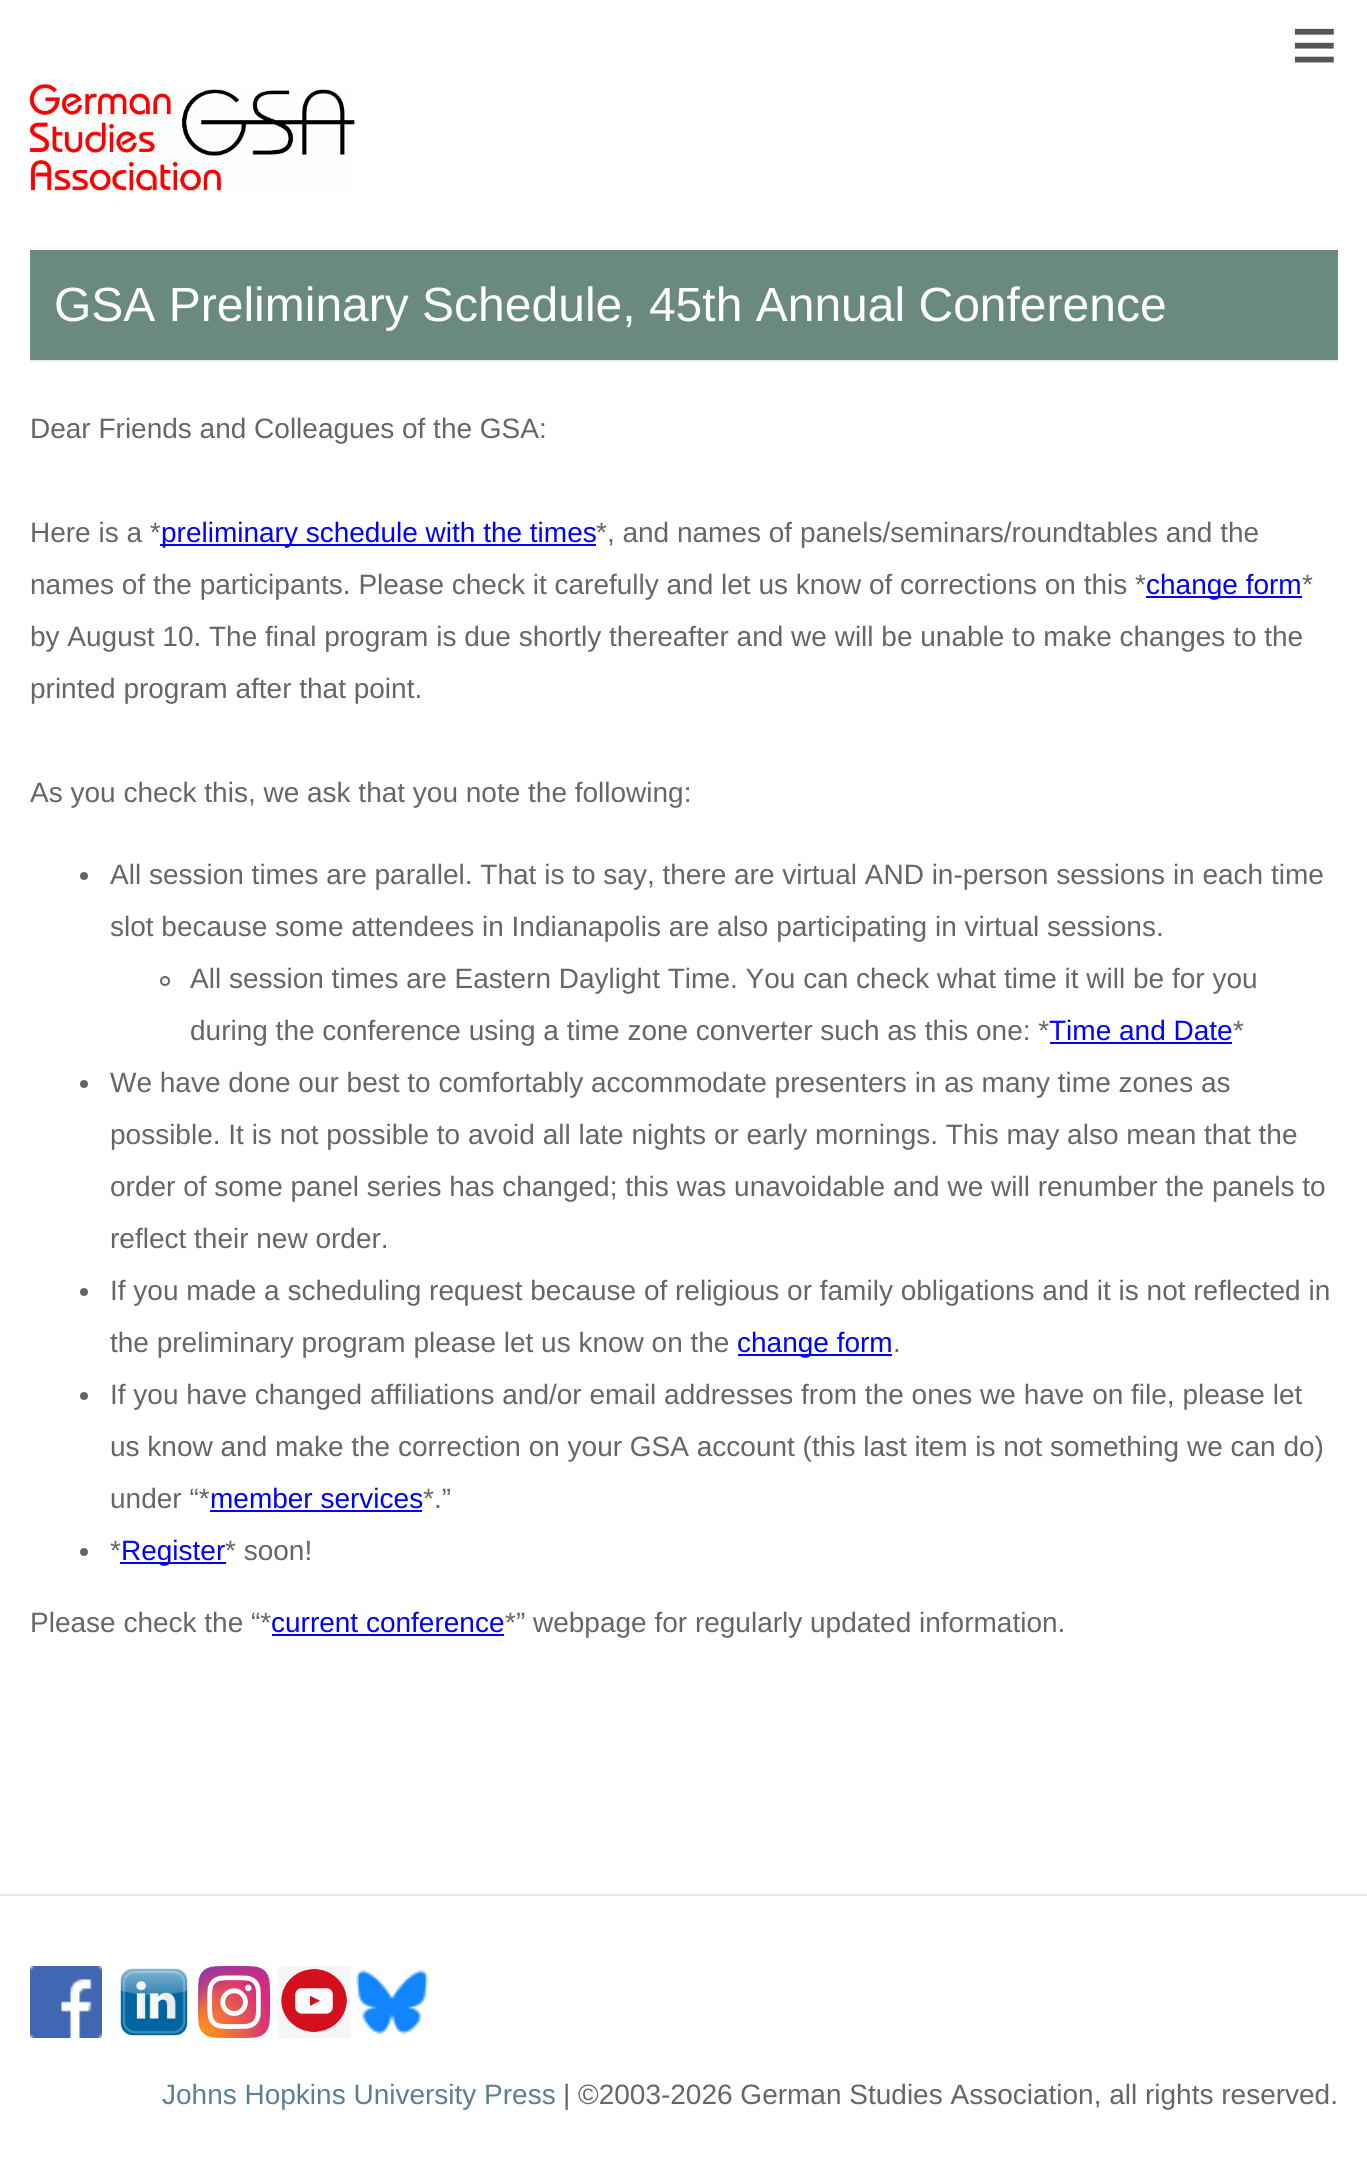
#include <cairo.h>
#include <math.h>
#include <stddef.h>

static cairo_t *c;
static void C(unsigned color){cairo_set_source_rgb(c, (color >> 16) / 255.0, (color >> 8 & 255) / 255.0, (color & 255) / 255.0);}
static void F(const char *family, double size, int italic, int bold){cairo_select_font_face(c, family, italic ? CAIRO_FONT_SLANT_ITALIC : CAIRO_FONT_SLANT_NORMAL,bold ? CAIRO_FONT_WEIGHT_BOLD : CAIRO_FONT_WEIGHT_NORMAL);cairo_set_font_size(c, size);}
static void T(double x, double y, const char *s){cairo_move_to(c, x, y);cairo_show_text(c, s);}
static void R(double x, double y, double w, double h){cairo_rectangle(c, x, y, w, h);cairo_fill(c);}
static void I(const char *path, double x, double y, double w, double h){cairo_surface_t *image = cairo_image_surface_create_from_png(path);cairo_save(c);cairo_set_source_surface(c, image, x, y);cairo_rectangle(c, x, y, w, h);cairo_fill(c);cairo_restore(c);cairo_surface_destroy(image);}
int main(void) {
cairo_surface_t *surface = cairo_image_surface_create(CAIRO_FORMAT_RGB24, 1367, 2164);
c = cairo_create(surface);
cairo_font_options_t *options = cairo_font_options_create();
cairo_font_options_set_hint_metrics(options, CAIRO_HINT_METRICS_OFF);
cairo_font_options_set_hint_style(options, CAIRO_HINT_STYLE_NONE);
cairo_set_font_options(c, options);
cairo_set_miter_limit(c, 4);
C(0xffffff);
cairo_paint(c);
F("Liberation Sans",80,0,0);
C(0x555555);
T(1291,72,"≡");
C(0x6a8a7f);
R(30,250,1308,110);
C(0xeeeeee);
R(30,360,1308,2);
F("Liberation Sans",48,0,0);
C(0xffffff);
T(54,321,"GSA Preliminary Schedule, 45th Annual Conference");
F("Liberation Sans",28,0,0);
C(0x666666);
T(30,438,"Dear Friends and Colleagues of the GSA:");
T(30,542,"Here is a *");
C(0x0000ff);
R(160,544,436,2);
T(161,542,"preliminary schedule with the times");
C(0x666666);
T(596,542,"*, and names of panels/seminars/roundtables and the");
T(30,594,"names of the participants. Please check it carefully and let us know of corrections on this *");
C(0x0000ff);
R(1146,596,156,2);
T(1146,594,"change form");
C(0x666666);
T(1302,594,"*");
T(30,646,"by August 10. The final program is due shortly thereafter and we will be unable to make changes to the");
T(30,698,"printed program after that point.");
T(30,802,"As you check this, we ask that you note the following:");
cairo_new_path(c);
cairo_arc(c,84,876,4,0,2 * M_PI);
cairo_fill(c);
T(110,884,"All session times are parallel. That is to say, there are virtual AND in-person sessions in each time");
T(110,936,"slot because some attendees in Indianapolis are also participating in virtual sessions.");
cairo_new_path(c);
cairo_arc(c,165,981,4,0,2 * M_PI);
cairo_stroke(c);
T(190,988,"All session times are Eastern Daylight Time. You can check what time it will be for you");
T(190,1040,"during the conference using a time zone converter such as this one: *");
C(0x0000ff);
T(1049,1040,"Time and Date");
R(1050,1042,182,2);
C(0x666666);
T(1233,1040,"*");
cairo_new_path(c);
cairo_arc(c,84,1084,4,0,2 * M_PI);
cairo_fill(c);
T(110,1092,"We have done our best to comfortably accommodate presenters in as many time zones as");
T(110,1144,"possible. It is not possible to avoid all late nights or early mornings. This may also mean that the");
T(110,1196,"order of some panel series has changed; this was unavoidable and we will renumber the panels to");
T(110,1248,"reflect their new order.");
cairo_new_path(c);
cairo_arc(c,84,1292,4,0,2 * M_PI);
cairo_fill(c);
T(110,1300,"If you made a scheduling request because of religious or family obligations and it is not reflected in");
T(110,1352,"the preliminary program please let us know on the");
C(0x0000ff);
R(738,1354,154,2);
T(737,1352,"change form");
C(0x666666);
T(893,1352,".");
cairo_new_path(c);
cairo_arc(c,84,1396,4,0,2 * M_PI);
cairo_fill(c);
T(110,1404,"If you have changed affiliations and/or email addresses from the ones we have on file, please let");
T(110,1456,"us know and make the correction on your GSA account (this last item is not something we can do)");
T(110,1508,"under “*");
C(0x0000ff);
T(210,1508,"member services");
R(210,1510,212,2);
C(0x666666);
T(423,1508,"*.”");
cairo_new_path(c);
cairo_arc(c,84,1552,4,0,2 * M_PI);
cairo_fill(c);
T(110,1560,"*");
C(0x0000ff);
R(120,1562,106,2);
T(121,1560,"Register");
C(0x666666);
T(225,1560,"* soon!");
T(30,1632,"Please check the “*");
C(0x0000ff);
T(271,1632,"current conference");
R(272,1634,232,2);
C(0x666666);
T(505,1632,"*” webpage for regularly updated information.");
I("1.png",29,84,326,107);
C(0xe5e5e5);
R(0,1894,1367,2);
I("2.png",30,1966,72,72);
I("3.png",120,1968,68,68);
I("4.png",198,1966,72,72);
I("5.png",278,1966,72,72);
I("6.png",356,1970,72,65);
C(0x5c7f92);
T(162,2104,"Johns Hopkins University Press");
C(0x666666);
T(563,2104,"| ©2003-2026 German Studies Association, all rights reserved.");
cairo_surface_write_to_png(surface, "o.png");
cairo_font_options_destroy(options);
cairo_destroy(c);
cairo_surface_destroy(surface);
return 0;
}
